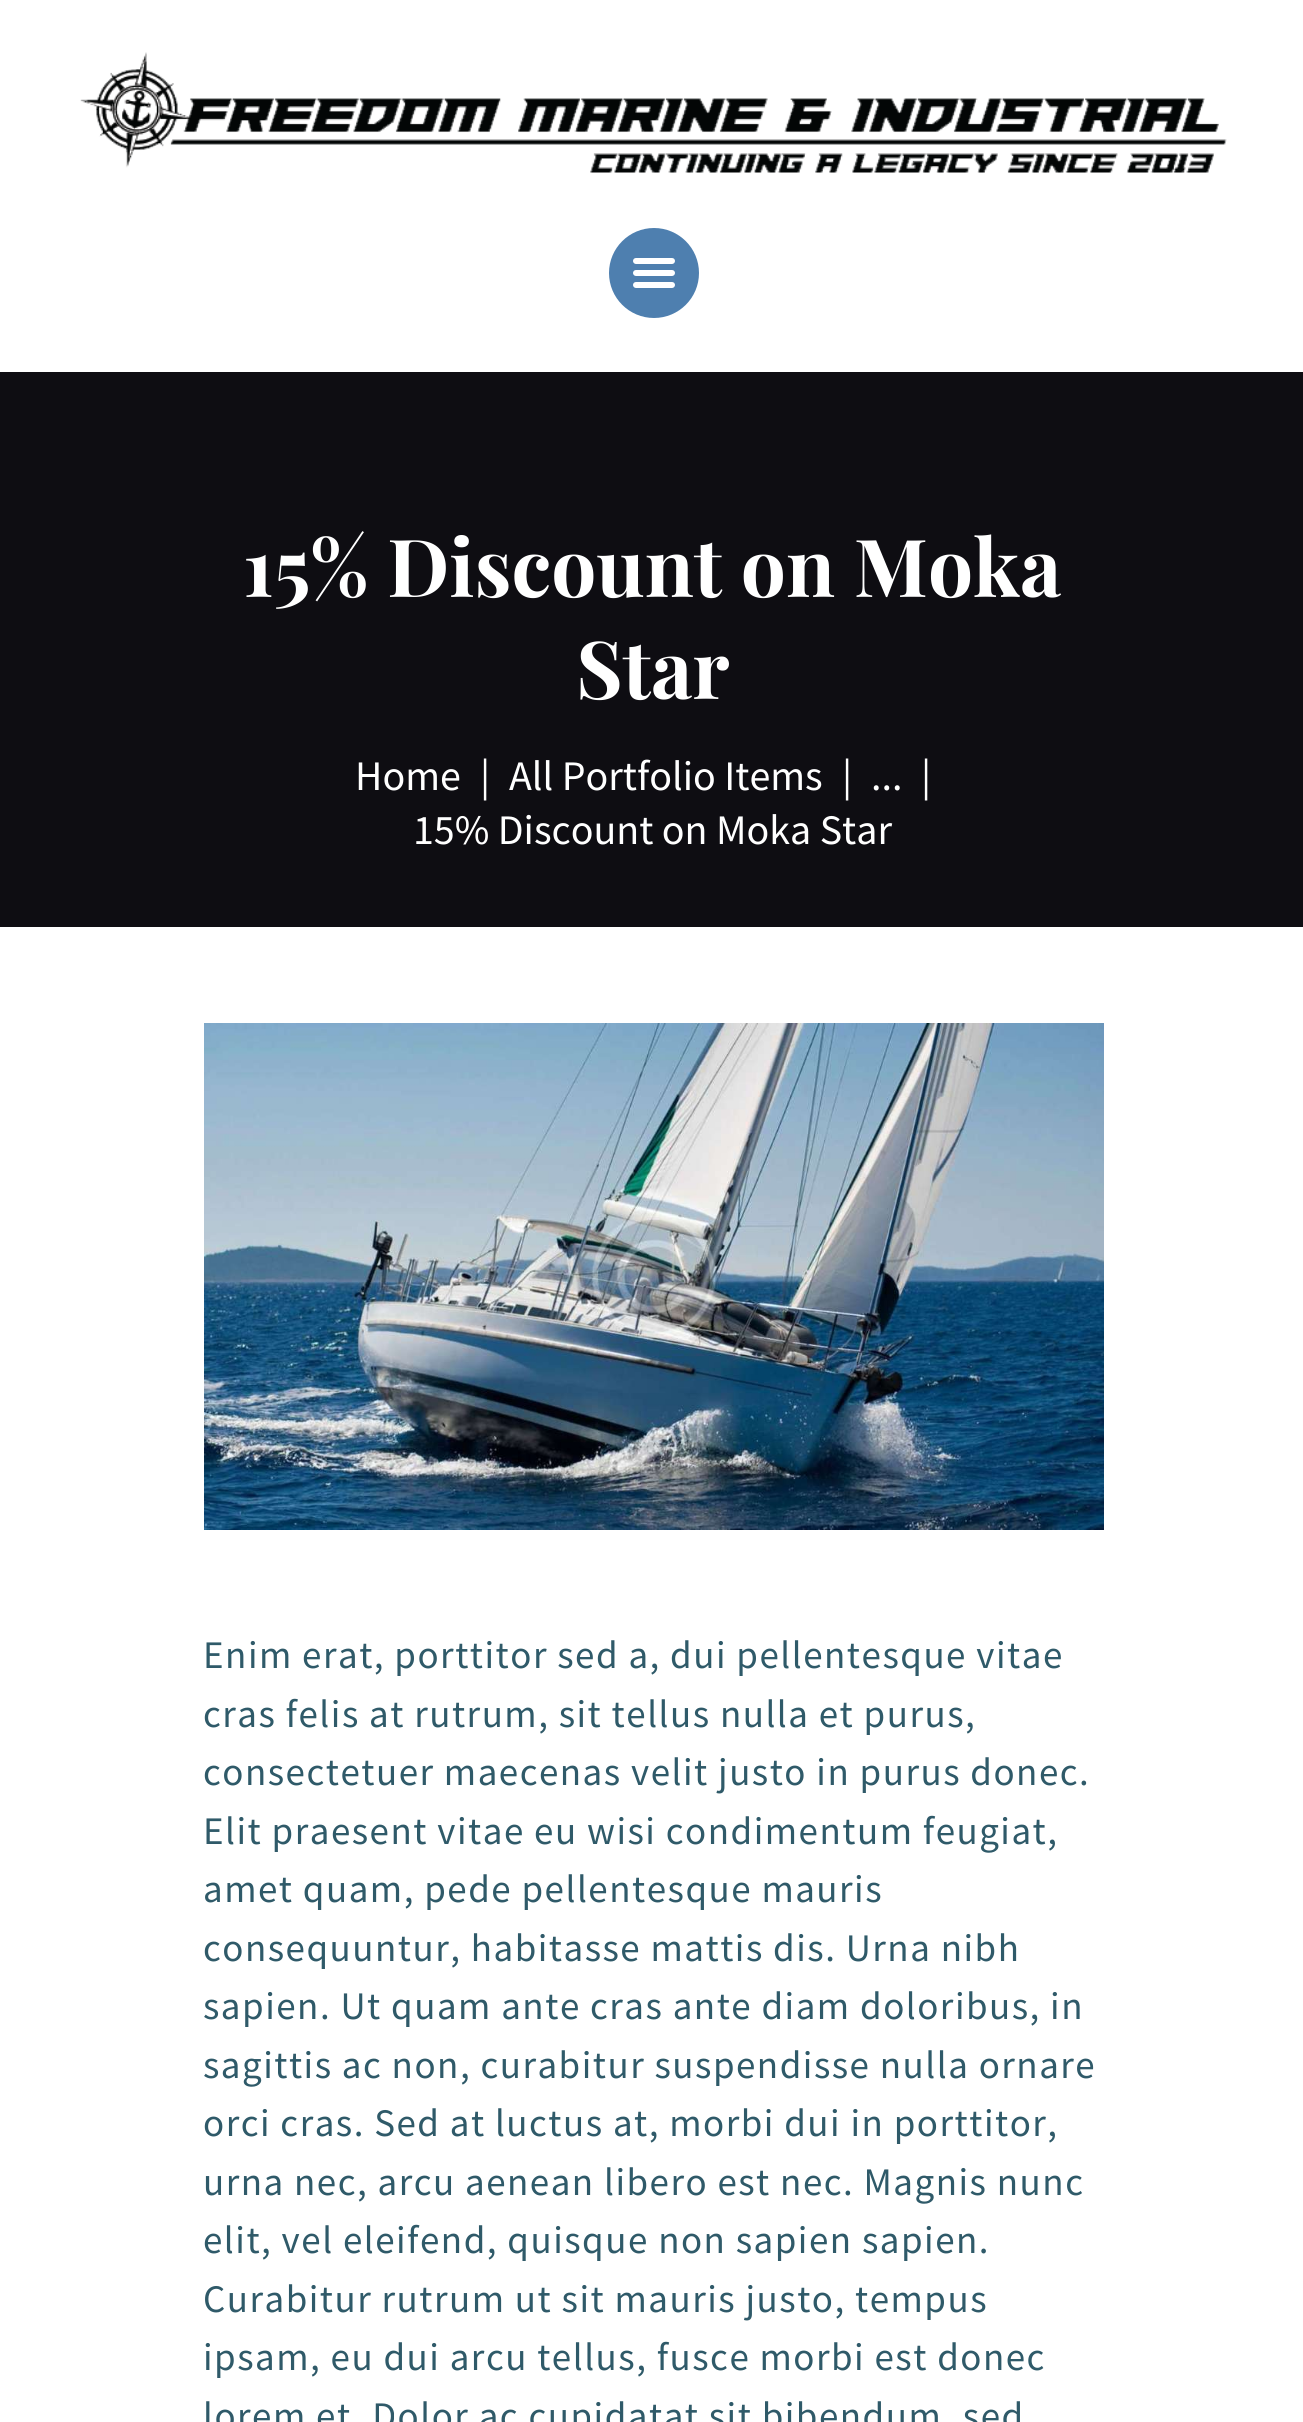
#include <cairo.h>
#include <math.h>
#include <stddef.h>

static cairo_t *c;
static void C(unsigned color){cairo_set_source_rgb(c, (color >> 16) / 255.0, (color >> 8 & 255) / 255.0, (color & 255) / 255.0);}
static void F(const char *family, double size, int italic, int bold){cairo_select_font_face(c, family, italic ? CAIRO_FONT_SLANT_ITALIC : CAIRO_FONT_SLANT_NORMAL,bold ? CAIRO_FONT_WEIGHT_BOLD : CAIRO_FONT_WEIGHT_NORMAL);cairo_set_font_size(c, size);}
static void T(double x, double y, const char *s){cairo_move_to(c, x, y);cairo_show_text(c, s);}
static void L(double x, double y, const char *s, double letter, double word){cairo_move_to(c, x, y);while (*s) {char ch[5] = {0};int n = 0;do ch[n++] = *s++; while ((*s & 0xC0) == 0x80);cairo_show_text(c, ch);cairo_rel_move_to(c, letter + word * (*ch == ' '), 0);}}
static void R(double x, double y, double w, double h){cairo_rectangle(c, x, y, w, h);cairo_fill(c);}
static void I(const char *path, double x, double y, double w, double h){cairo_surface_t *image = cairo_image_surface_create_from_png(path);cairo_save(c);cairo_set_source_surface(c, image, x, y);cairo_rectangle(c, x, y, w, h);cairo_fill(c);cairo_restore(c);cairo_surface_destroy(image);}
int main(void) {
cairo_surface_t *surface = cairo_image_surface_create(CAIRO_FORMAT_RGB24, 1303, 2422);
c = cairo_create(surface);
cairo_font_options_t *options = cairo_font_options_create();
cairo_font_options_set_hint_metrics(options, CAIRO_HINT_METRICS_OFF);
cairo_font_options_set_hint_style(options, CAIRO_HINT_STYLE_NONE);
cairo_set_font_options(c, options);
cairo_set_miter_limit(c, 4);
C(0xffffff);
cairo_paint(c);
I("1.png",80,52,1147,121);
C(0x4e7faf);
cairo_arc(c,654,273,45,0,2 * M_PI);
cairo_fill(c);
I("2.png",633,258,42,30);
C(0x0e0d12);
R(0,372,1303,555);
F("Playfair Display",80,0,1);
C(0xffffff);
T(243,597,"15% Discount on Moka");
T(576,699,"Star");
F("Source Sans Pro",42,0,0);
T(355,790,"Home");
T(480,790,"|");
T(509,790,"All Portfolio Items");
T(842,790,"|");
T(871,790,"...");
T(921,790,"|");
T(413,844,"15% Discount on Moka Star");
I("3.png",204,1023,900,507);
F("Source Sans Pro",39,0,0);
C(0x2f5a69);
L(203,1668,"Enim erat, porttitor sed a, dui pellentesque vitae",1.5,0);
L(203,1727,"cras felis at rutrum, sit tellus nulla et purus,",1.5,0);
L(203,1785,"consectetuer maecenas velit justo in purus donec.",1.5,0);
L(203,1844,"Elit praesent vitae eu wisi condimentum feugiat,",1.5,0);
L(203,1902,"amet quam, pede pellentesque mauris",1.5,0);
L(203,1961,"consequuntur, habitasse mattis dis. Urna nibh",1.5,0);
L(203,2019,"sapien. Ut quam ante cras ante diam doloribus, in",1.5,0);
L(203,2078,"sagittis ac non, curabitur suspendisse nulla ornare",1.5,0);
L(203,2136,"orci cras. Sed at luctus at, morbi dui in porttitor,",1.5,0);
L(203,2195,"urna nec, arcu aenean libero est nec. Magnis nunc",1.5,0);
L(203,2253,"elit, vel eleifend, quisque non sapien sapien.",1.5,0);
L(203,2312,"Curabitur rutrum ut sit mauris justo, tempus",1.5,0);
L(203,2370,"ipsam, eu dui arcu tellus, fusce morbi est donec",1.5,0);
L(203,2429,"lorem et. Dolor ac cupidatat sit bibendum, sed",1.5,0);
cairo_surface_write_to_png(surface, "o.png");
cairo_font_options_destroy(options);
cairo_destroy(c);
cairo_surface_destroy(surface);
return 0;
}
